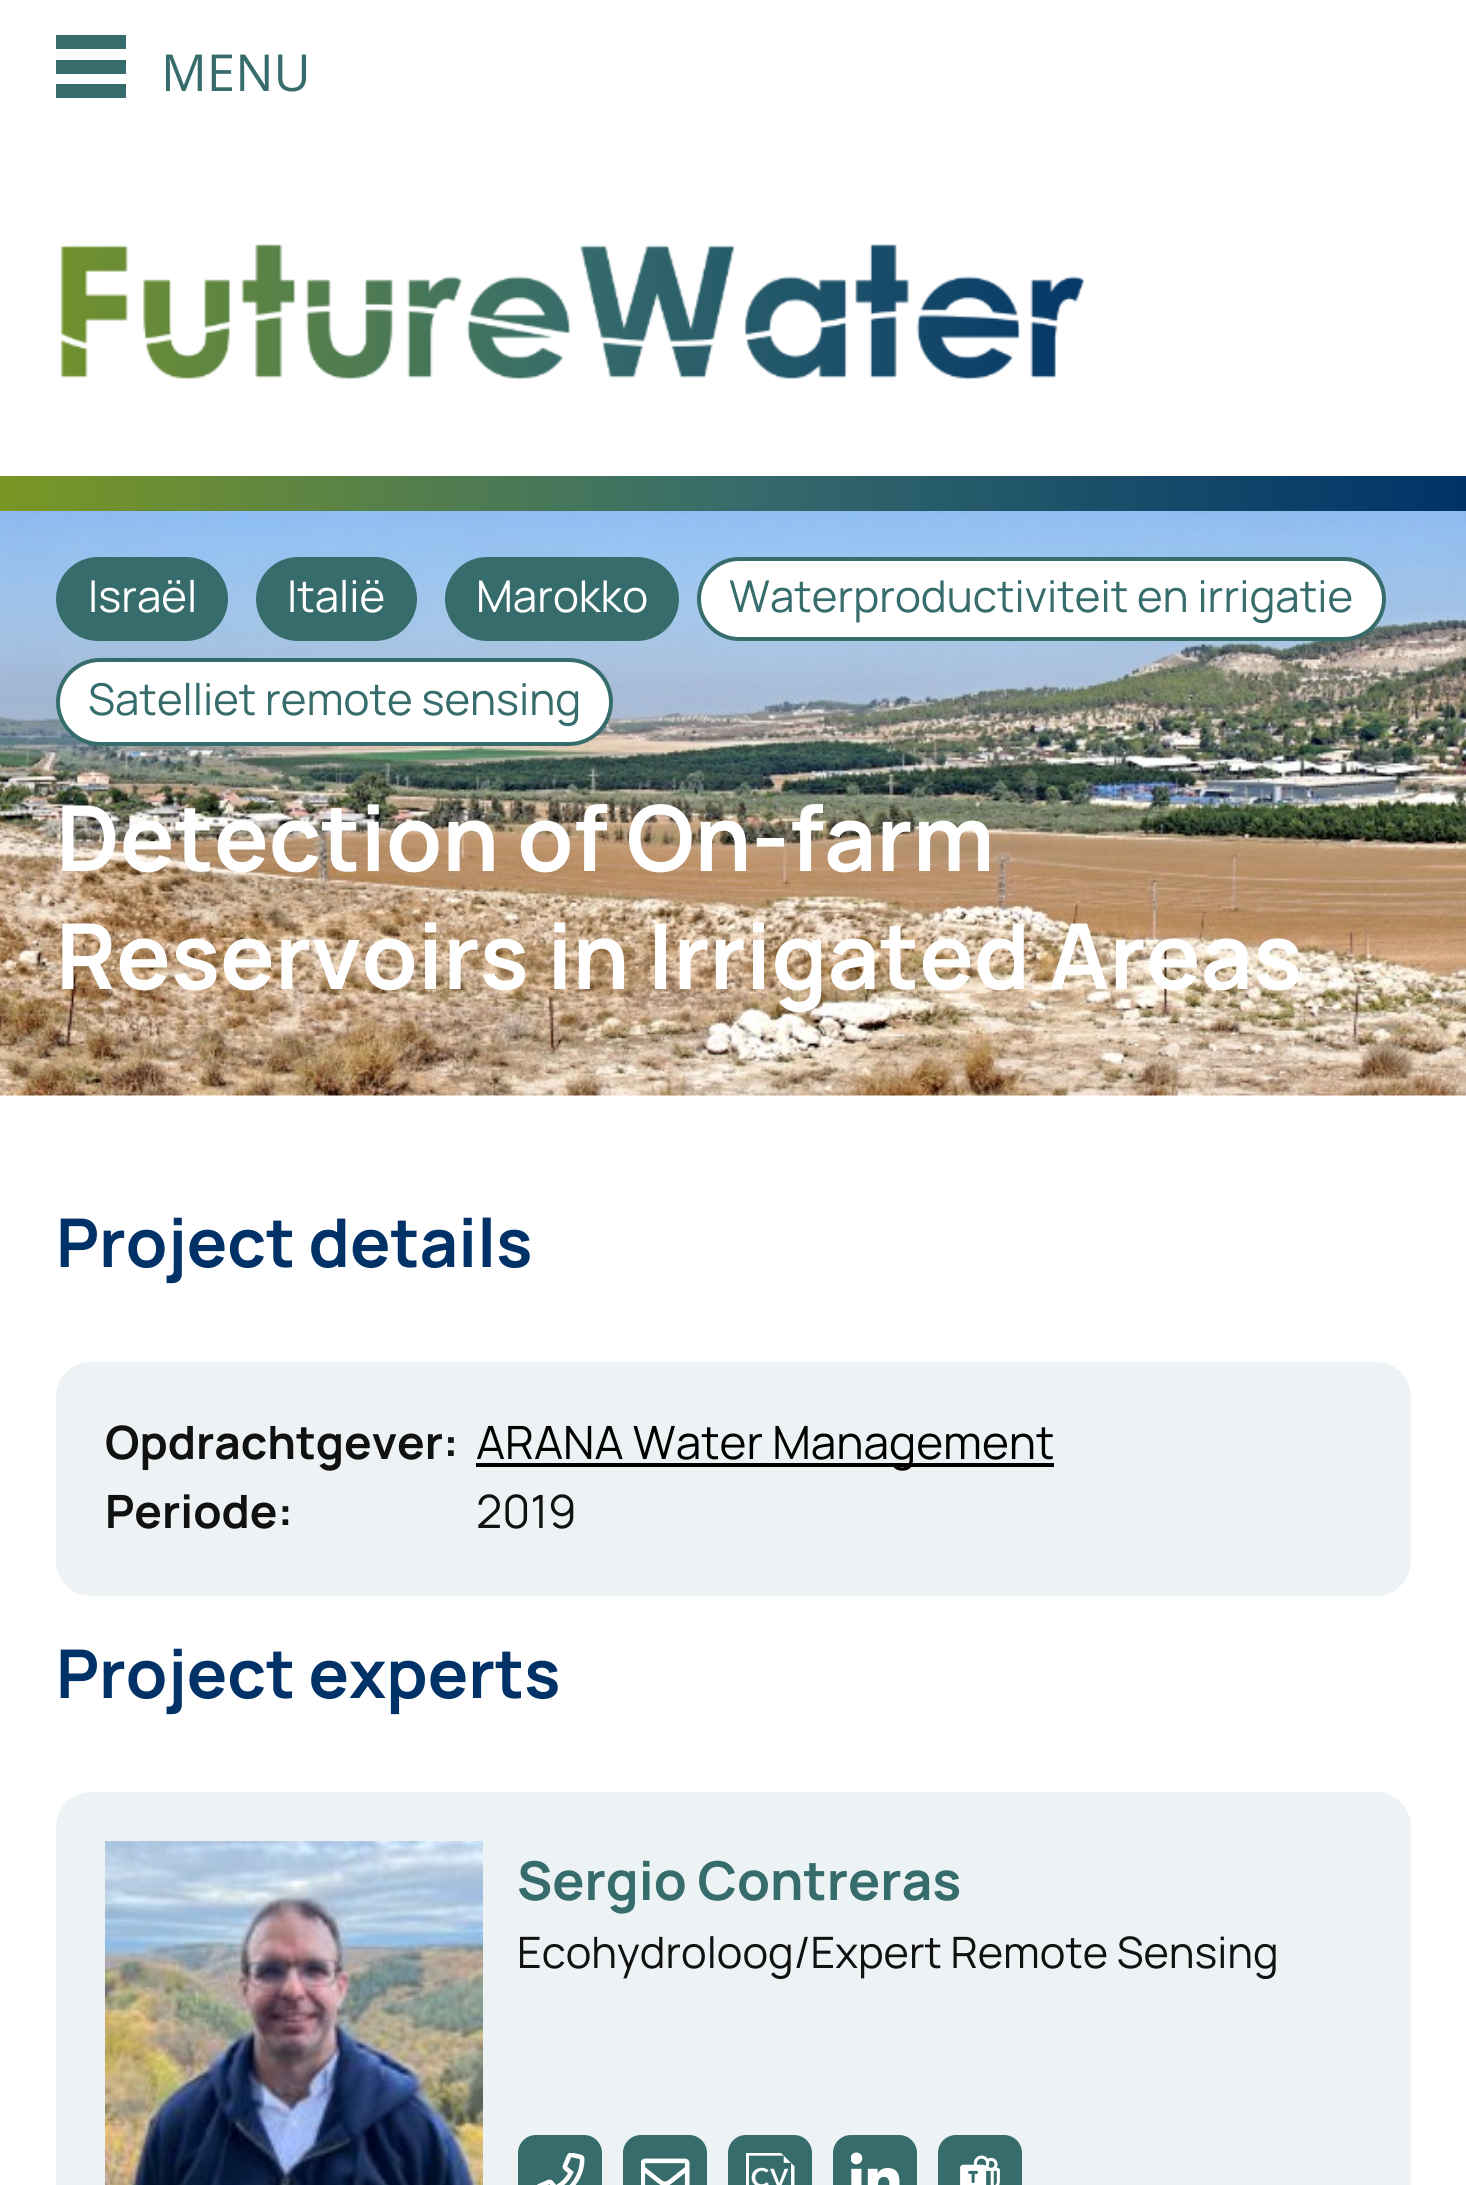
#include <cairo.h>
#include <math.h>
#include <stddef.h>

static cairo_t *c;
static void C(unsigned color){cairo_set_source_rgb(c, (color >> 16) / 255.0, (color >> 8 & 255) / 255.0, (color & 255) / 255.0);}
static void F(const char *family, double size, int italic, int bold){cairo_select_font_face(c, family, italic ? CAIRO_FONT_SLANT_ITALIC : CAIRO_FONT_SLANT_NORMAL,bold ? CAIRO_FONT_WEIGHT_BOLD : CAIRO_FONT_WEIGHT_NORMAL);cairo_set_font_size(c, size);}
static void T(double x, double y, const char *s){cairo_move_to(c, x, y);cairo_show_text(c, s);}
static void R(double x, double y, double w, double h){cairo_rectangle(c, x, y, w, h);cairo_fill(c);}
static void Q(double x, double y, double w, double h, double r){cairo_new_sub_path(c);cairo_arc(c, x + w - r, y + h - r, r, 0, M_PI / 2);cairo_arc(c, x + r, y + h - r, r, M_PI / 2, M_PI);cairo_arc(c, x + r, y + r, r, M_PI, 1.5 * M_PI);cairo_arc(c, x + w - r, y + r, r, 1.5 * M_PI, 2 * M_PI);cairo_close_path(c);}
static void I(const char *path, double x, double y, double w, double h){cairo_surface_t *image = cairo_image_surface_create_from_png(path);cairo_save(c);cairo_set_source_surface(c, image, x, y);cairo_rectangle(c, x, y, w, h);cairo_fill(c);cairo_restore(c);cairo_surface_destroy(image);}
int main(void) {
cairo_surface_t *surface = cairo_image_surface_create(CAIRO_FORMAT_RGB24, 1466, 2185);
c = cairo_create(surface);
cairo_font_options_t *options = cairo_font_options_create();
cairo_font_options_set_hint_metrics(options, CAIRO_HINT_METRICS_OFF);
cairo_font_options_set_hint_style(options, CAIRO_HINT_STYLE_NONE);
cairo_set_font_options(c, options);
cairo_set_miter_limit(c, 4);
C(0xffffff);
cairo_paint(c);
I("1.png",0,476,1466,35);
C(0x366c6b);
R(56,35,70,14);
R(56,60,70,14);
R(56,84,70,14);
F("Open Sans",51,0,0);
T(161,91,"MENU");
I("2.png",60,244,1024,136);
I("3.png",0,511,1466,585);
Q(58,559,168,80,40);
cairo_fill_preserve(c);
cairo_set_line_width(c,4);
cairo_stroke(c);
F("Manrope",43.8,0,0);
C(0xffffff);
T(88,612,"Israël");
C(0x366c6b);
Q(258,559,157,80,40);
cairo_fill_preserve(c);
cairo_stroke(c);
C(0xffffff);
T(287,612,"Italië");
C(0x366c6b);
Q(447,559,230,80,40);
cairo_fill_preserve(c);
cairo_stroke(c);
C(0xffffff);
T(476,612,"Marokko");
Q(699,559,685,80,40);
cairo_fill_preserve(c);
C(0x366c6b);
cairo_stroke(c);
T(729,612,"Waterproductiviteit en irrigatie");
C(0xffffff);
Q(58,660,553,84,42);
cairo_fill_preserve(c);
C(0x366c6b);
cairo_stroke(c);
T(88,715,"Satelliet remote sensing");
F("Manrope",91,0,1);
C(0xffffff);
T(56,871,"Detection of On-farm");
T(56,989,"Reservoirs in Irrigated Areas");
F("Manrope",67.25,0,1);
C(0x003268);
T(56,1267,"Project details");
C(0xedf2f4);
Q(56,1362,1355,234,35);
cairo_fill(c);
F("Manrope",45.9,0,1);
C(0x111111);
T(105,1459,"Opdrachtgever:");
C(0x000000);
R(476,1463,578,4);
F("Manrope",45.9,0,0);
T(476,1459,"ARANA Water Management");
F("Manrope",45.9,0,1);
C(0x111111);
T(105,1528,"Periode:");
F("Manrope",45.9,0,0);
T(476,1528,"2019");
F("Manrope",67.25,0,1);
C(0x003268);
T(56,1698,"Project experts");
C(0xedf2f4);
Q(56,1792,1355,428,35);
cairo_fill(c);
I("4.png",105,1841,378,344);
F("Manrope",53.5,0,1);
C(0x366c6b);
T(517,1900,"Sergio Contreras");
F("Manrope",43.3,0,0);
C(0x111111);
T(517,1968,"Ecohydroloog/Expert Remote Sensing");
C(0x366c6b);
Q(518,2135,84,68,18);
cairo_fill(c);
I("5.png",537,2153,48,32);
Q(623,2135,84,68,18);
cairo_fill(c);
I("6.png",641,2158,49,27);
Q(728,2135,84,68,18);
cairo_fill(c);
I("7.png",746,2153,49,32);
Q(833,2135,84,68,18);
cairo_fill(c);
I("8.png",851,2152,49,33);
Q(938,2135,84,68,18);
cairo_fill(c);
I("9.png",960,2155,40,30);
cairo_surface_write_to_png(surface, "o.png");
cairo_font_options_destroy(options);
cairo_destroy(c);
cairo_surface_destroy(surface);
return 0;
}
